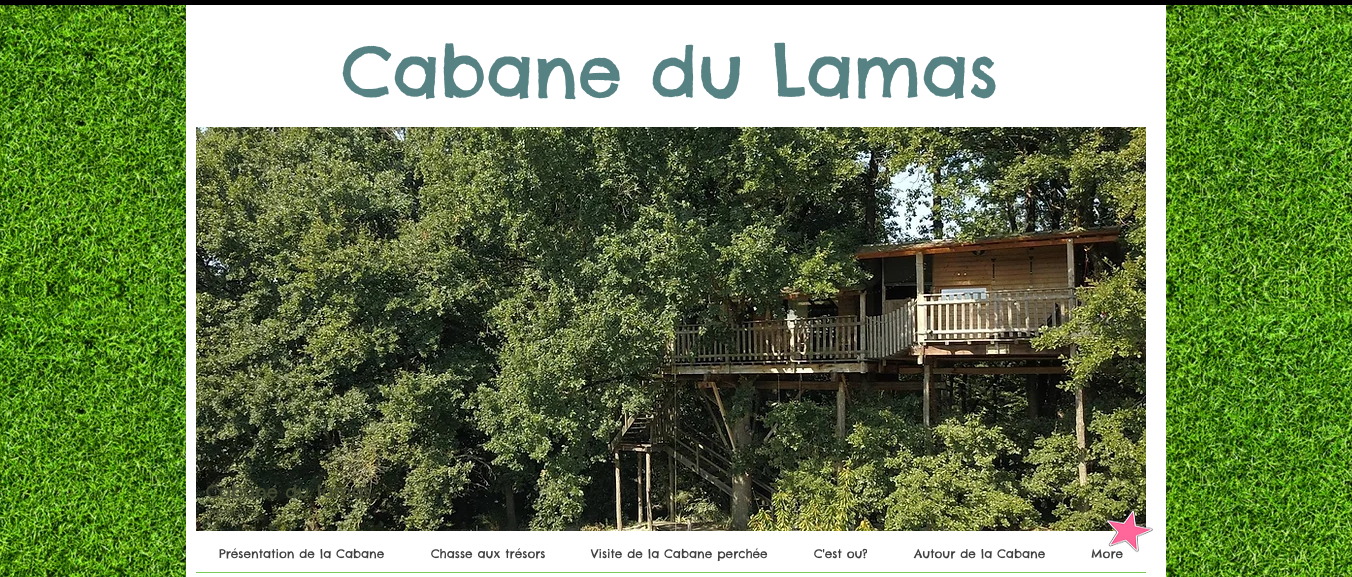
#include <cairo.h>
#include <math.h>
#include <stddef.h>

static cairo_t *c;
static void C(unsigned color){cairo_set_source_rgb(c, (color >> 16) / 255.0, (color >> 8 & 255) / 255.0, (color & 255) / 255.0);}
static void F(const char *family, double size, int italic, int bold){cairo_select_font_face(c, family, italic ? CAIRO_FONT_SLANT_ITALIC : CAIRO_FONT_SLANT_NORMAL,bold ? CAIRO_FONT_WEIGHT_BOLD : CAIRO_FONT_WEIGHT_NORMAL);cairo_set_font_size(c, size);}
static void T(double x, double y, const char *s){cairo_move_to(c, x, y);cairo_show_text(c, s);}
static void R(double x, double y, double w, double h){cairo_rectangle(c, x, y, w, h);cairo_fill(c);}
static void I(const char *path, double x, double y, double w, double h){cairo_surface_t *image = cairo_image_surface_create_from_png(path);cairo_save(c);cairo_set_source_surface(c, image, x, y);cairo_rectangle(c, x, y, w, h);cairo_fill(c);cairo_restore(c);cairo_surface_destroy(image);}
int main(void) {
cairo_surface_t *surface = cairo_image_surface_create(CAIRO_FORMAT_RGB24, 1352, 577);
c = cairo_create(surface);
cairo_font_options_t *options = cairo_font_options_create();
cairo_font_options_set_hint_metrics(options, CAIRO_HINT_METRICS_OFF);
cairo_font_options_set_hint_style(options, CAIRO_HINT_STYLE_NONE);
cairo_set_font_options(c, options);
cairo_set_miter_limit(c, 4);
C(0xffffff);
cairo_paint(c);
I("1.png",0,5,1352,572);
C(0x000000);
R(0,0,1352,5);
C(0xffffff);
R(186,5,980,572);
F("Chelsea Market",70,0,0);
C(0x578284);
T(342,97,"Cabane du Lamas");
I("2.png",196,127,950,404);
F("Chelsea Market",18,0,0);
C(0x454b32);
T(206,498,"Cabane du lamas");
F("Liberation Sans",12,0,0);
C(0x51583a);
T(206,516,"treehouse");
F("Chelsea Market",12,0,0);
C(0x404040);
T(1091,558,"More");
I("3.png",1106,510,47,43);
T(219,558,"Présentation de la Cabane");
T(431,558,"Chasse aux trésors");
T(591,558,"Visite de la Cabane perchée");
T(814,558,"C'est ou?");
T(914,558,"Autour de la Cabane");
C(0x7ac959);
R(196,572,950,1);
cairo_surface_write_to_png(surface, "o.png");
cairo_font_options_destroy(options);
cairo_destroy(c);
cairo_surface_destroy(surface);
return 0;
}
